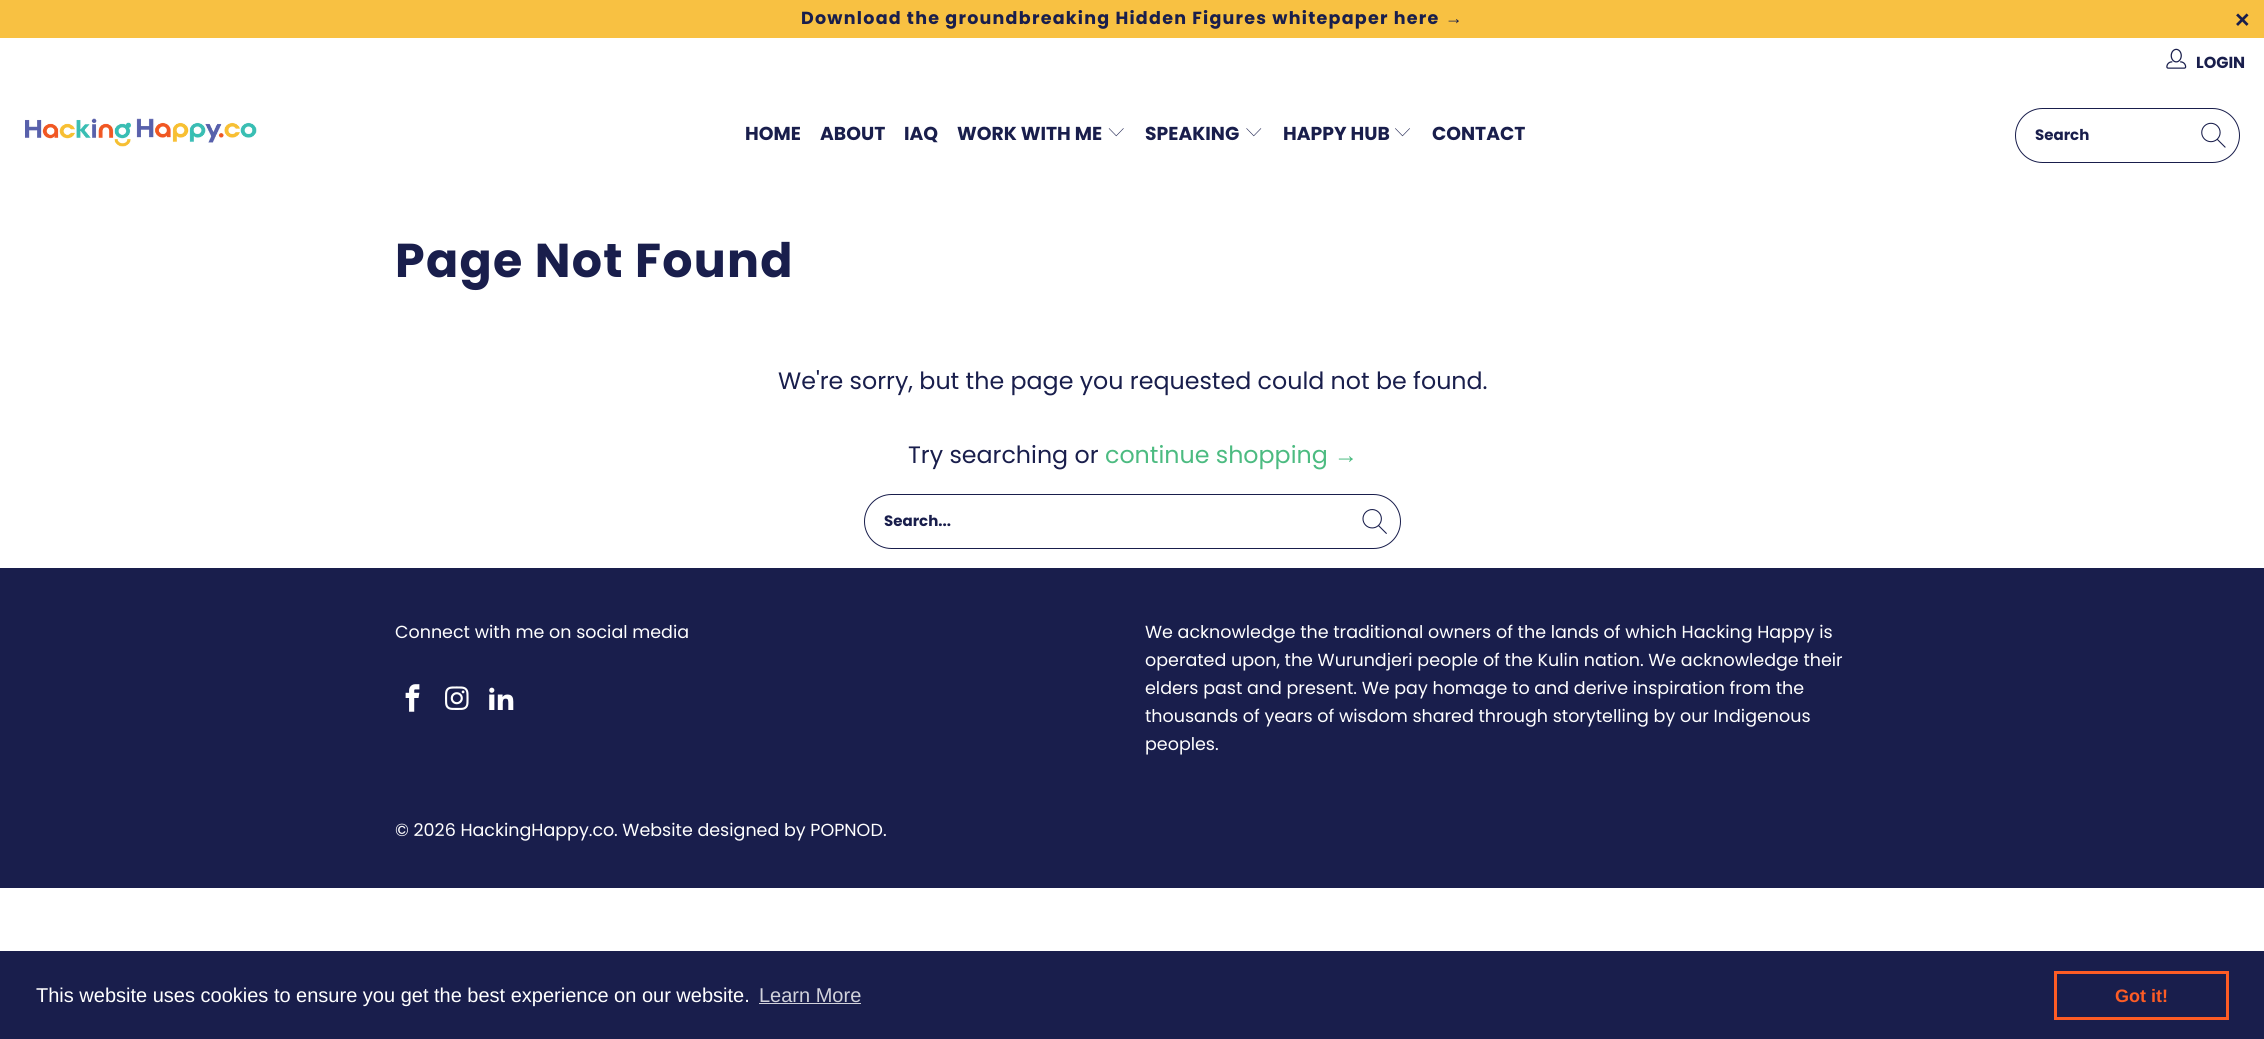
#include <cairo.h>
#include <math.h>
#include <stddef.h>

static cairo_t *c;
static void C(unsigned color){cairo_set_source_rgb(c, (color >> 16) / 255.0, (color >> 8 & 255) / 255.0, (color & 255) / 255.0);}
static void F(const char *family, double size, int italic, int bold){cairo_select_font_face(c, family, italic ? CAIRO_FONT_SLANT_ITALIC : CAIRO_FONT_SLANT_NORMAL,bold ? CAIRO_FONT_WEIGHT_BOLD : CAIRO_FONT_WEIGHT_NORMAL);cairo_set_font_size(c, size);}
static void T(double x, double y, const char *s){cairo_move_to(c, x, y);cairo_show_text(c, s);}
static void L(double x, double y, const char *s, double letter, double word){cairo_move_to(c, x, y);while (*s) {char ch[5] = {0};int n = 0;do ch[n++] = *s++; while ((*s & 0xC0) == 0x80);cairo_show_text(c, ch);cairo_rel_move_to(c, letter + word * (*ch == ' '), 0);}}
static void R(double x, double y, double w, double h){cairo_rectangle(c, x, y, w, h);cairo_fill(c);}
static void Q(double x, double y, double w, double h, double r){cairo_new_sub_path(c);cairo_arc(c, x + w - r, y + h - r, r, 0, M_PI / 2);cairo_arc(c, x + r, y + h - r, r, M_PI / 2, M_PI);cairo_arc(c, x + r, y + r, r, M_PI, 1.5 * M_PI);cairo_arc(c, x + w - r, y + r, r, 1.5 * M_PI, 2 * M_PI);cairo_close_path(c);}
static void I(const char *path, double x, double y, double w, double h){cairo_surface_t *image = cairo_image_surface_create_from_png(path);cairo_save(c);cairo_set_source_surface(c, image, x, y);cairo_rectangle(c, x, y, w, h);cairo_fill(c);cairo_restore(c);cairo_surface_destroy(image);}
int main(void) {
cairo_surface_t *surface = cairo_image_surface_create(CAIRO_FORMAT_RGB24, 2264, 1039);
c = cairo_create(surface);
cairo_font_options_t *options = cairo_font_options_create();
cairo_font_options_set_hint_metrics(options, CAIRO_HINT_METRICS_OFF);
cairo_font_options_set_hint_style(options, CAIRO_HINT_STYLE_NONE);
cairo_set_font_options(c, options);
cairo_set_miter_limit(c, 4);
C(0xffffff);
cairo_paint(c);
C(0xf8c142);
R(0,0,2264,38);
F("Poppins",17.5,0,1);
C(0x191e4c);
L(801,24,"Download the groundbreaking Hidden Figures whitepaper here",1.25,0);
F("Liberation Sans",17.5,0,1);
L(1445,24,"→",1.25,0);
F("Liberation Sans",25,0,1);
L(2235,28,"×",1.25,0);
I("1.png",2166,48,21,21);
F("Poppins",16,0,1);
T(2196,68,"LOGIN");
I("2.png",25,118,232,29);
F("Poppins",18.75,0,1);
T(745,140,"HOME");
T(820,140,"ABOUT");
T(904,140,"IAQ");
T(957,140,"WORK WITH ME");
I("3.png",1108,128,16,9);
T(1145,140,"SPEAKING");
I("4.png",1246,128,16,9);
T(1283,140,"HAPPY HUB");
I("5.png",1395,128,15,9);
T(1432,140,"CONTACT");
Q(2015.5,108.5,224,54,27);
cairo_set_line_width(c,1);
cairo_stroke(c);
F("Poppins",15,0,1);
T(2035,140,"Search");
I("6.png",2201,122,25,26);
F("Poppins",47.5,0,1);
L(395,277,"Page Not Found",1.25,0);
F("Poppins",23.75,0,0);
T(778,389,"We're sorry, but the page you requested could not be found.");
T(908,463,"Try searching or");
C(0x4cbb81);
T(1105,463,"continue shopping");
F("Liberation Sans",23.75,0,0);
T(1334,463,"→");
Q(864.5,494.5,536,54,27);
C(0x191e4c);
cairo_stroke(c);
F("Poppins",15,0,1);
T(884,526,"Search...");
I("7.png",1362,509,25,25);
R(0,568,2264,320);
F("Poppins",17.5,0,0);
C(0xffffff);
T(395,638,"Connect with me on social media");
I("8.png",405,684,15,28);
I("9.png",445,686,24,24);
I("10.png",489,687,25,23);
T(1145,638,"We acknowledge the traditional owners of the lands of which Hacking Happy is");
T(1145,666,"operated upon, the Wurundjeri people of the Kulin nation. We acknowledge their");
T(1145,694,"elders past and present. We pay homage to and derive inspiration from the");
T(1145,722,"thousands of years of wisdom shared through storytelling by our Indigenous");
T(1145,750,"peoples.");
T(395,836,"© 2026 HackingHappy.co");
T(614,836,". Website designed by POPNOD");
T(883,836,".");
C(0x191e4c);
R(0,951,2264,88);
F("Liberation Sans",20,0,0);
C(0xffffff);
T(36,1002,"This website uses cookies to ensure you get the best experience on our website.");
C(0xd1d2db);
T(759,1002,"Learn More");
R(759,1003,102,1);
cairo_rectangle(c,2055.5,972.5,172,46);
C(0xfd5c25);
cairo_set_line_width(c,3);
cairo_stroke(c);
F("Liberation Sans",18,0,1);
T(2115,1002,"Got it!");
cairo_surface_write_to_png(surface, "o.png");
cairo_font_options_destroy(options);
cairo_destroy(c);
cairo_surface_destroy(surface);
return 0;
}
